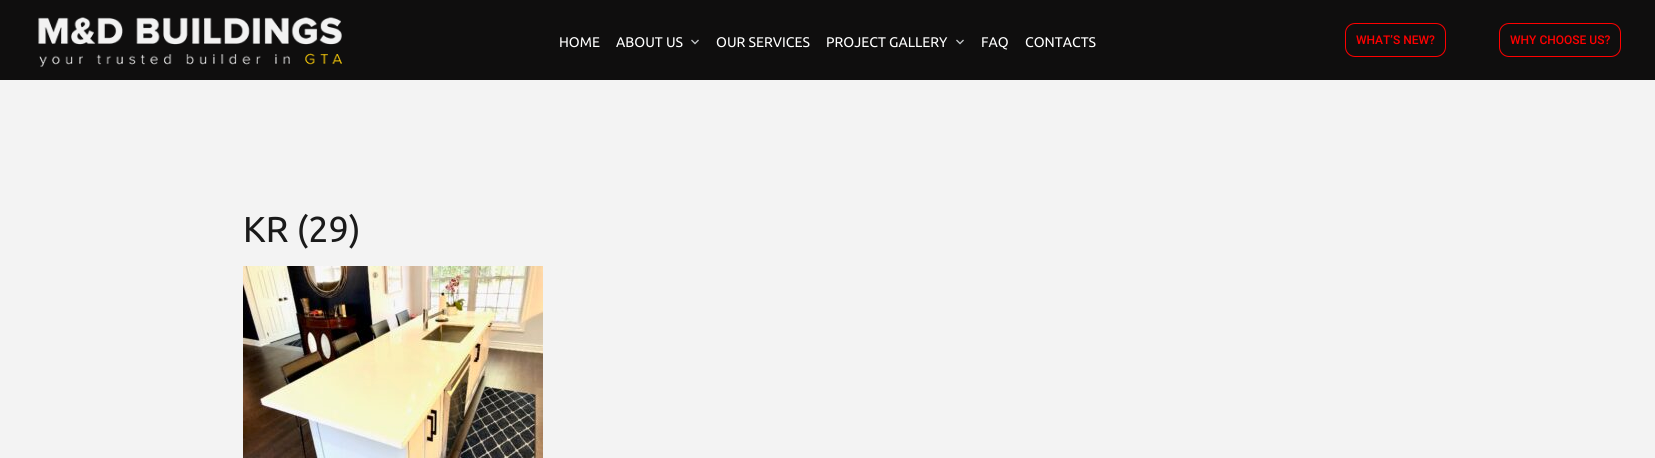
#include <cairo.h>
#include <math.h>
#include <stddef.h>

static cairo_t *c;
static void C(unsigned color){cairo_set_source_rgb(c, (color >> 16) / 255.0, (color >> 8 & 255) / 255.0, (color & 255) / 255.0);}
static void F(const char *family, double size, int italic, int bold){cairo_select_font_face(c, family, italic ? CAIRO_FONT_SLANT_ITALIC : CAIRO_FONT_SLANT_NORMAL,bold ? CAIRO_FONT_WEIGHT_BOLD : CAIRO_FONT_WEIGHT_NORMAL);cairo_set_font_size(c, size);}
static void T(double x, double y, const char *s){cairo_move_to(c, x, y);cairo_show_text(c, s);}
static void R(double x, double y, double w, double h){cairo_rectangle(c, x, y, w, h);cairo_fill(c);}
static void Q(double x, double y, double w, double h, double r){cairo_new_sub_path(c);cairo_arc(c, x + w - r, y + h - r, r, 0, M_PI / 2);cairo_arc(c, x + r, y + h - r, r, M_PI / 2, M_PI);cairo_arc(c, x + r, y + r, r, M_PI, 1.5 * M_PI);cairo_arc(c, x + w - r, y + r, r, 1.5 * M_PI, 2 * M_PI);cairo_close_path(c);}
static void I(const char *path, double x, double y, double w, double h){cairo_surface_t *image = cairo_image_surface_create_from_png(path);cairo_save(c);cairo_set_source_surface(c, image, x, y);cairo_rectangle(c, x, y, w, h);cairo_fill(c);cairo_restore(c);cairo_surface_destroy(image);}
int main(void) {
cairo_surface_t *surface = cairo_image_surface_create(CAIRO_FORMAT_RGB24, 1655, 458);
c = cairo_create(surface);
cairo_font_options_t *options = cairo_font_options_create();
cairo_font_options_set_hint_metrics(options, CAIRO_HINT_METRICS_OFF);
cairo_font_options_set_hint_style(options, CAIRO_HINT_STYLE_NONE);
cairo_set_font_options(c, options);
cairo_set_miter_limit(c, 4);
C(0xf3f3f3);
cairo_paint(c);
C(0x0f0e0e);
R(0,0,1655,80);
I("1.png",38,17,304,50);
F("Ubuntu",14,0,0);
C(0xffffff);
T(559,47,"HOME");
T(616,47,"ABOUT US");
I("2.png",691,39,8,6);
T(716,47,"OUR SERVICES");
T(826,47,"PROJECT GALLERY");
I("2.png",956,39,8,6);
T(981,47,"FAQ");
T(1025,47,"CONTACTS");
Q(1345.5,23.5,100,33,9.5);
C(0xff0000);
cairo_set_line_width(c,1);
cairo_stroke(c);
F("Roboto Medium",12,0,0);
T(1356,44,"WHAT’S NEW?");
Q(1499.5,23.5,121,33,9.5);
cairo_stroke(c);
T(1510,44,"WHY CHOOSE US?");
F("Ubuntu",36,0,0);
C(0x1a1a1a);
T(243,242,"KR (29)");
I("3.png",243,266,300,192);
cairo_surface_write_to_png(surface, "o.png");
cairo_font_options_destroy(options);
cairo_destroy(c);
cairo_surface_destroy(surface);
return 0;
}
